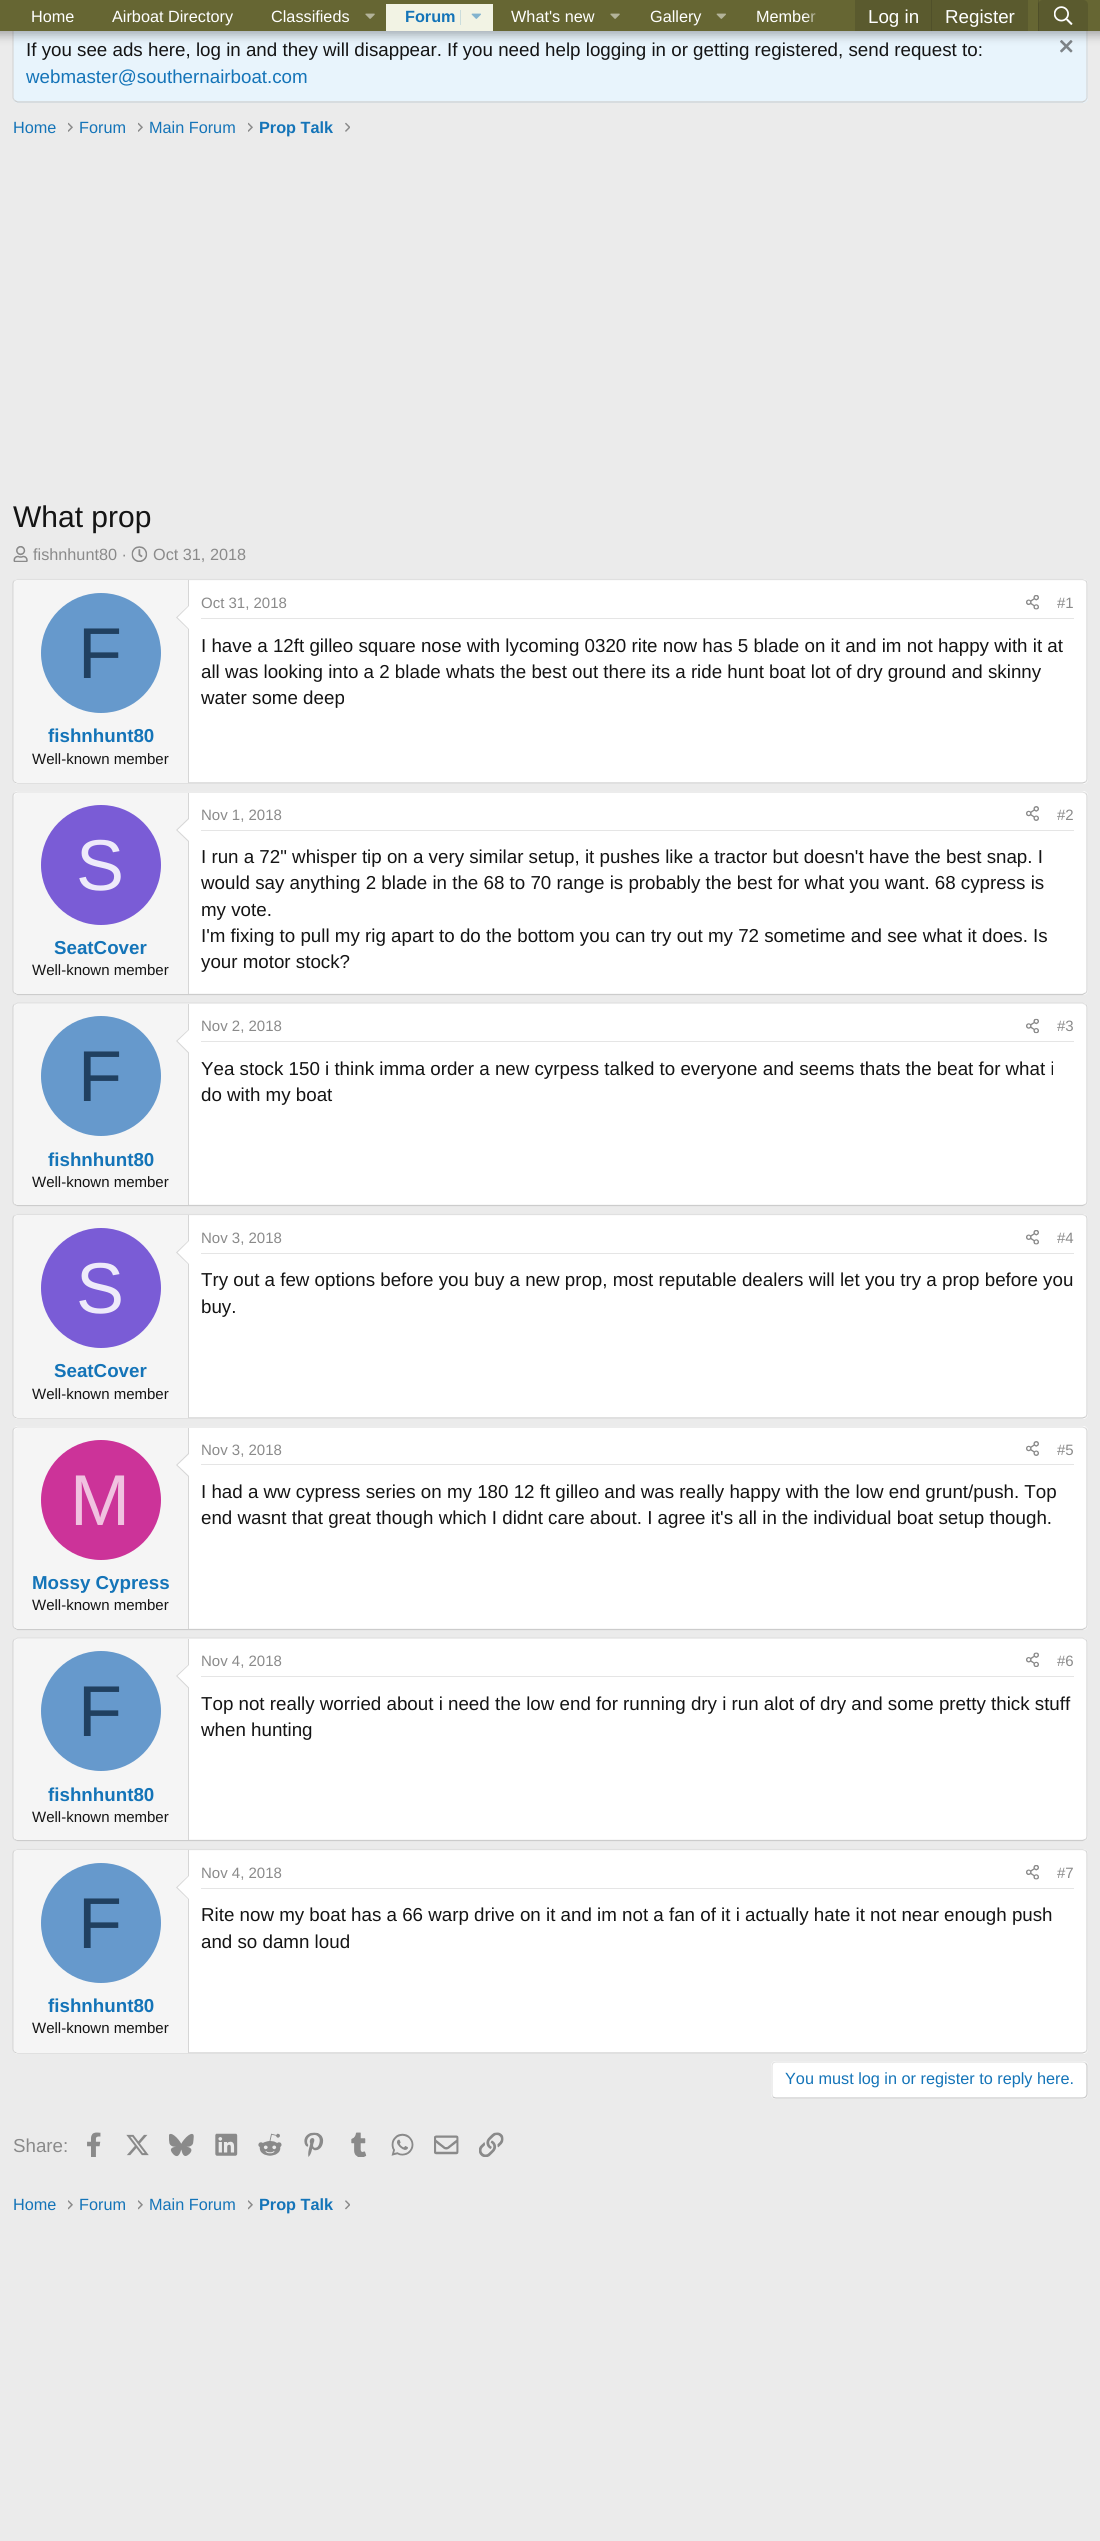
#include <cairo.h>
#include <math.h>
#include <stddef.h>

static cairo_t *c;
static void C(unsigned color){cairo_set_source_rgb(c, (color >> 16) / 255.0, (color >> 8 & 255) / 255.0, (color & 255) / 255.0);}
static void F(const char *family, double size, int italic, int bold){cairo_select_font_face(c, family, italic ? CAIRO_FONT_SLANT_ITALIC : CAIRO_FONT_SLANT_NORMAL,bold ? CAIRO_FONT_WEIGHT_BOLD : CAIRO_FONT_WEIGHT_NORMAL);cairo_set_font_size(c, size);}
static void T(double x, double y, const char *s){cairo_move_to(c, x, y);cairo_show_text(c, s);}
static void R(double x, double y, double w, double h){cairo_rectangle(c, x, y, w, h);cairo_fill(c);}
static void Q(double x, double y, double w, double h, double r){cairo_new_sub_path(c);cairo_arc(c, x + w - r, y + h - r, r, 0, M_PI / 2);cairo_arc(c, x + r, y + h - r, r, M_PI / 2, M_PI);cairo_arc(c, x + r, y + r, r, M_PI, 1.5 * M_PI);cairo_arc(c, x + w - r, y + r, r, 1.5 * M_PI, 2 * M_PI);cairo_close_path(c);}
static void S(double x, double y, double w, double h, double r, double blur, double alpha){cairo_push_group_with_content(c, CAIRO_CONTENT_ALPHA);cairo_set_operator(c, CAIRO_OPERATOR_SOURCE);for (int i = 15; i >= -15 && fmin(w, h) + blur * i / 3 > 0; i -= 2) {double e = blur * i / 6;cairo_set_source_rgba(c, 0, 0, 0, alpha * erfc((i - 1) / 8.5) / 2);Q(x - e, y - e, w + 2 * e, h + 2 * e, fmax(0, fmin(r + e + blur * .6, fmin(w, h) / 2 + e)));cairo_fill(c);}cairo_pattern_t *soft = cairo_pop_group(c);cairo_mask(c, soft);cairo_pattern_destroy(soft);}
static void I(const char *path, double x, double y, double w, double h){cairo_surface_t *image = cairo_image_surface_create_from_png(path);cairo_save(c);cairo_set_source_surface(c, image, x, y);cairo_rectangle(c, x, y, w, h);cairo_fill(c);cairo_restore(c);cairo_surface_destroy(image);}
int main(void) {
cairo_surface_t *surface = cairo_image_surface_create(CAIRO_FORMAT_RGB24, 1100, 2541);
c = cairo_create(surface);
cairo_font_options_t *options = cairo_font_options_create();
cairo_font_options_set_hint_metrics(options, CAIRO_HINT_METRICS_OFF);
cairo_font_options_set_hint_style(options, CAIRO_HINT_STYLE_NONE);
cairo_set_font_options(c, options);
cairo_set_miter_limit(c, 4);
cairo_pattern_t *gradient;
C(0xebebeb);
cairo_paint(c);
C(0xe8f4fc);
Q(13,23,1075,80,5);
cairo_fill(c);
cairo_new_path(c);
cairo_move_to(c,1085.5,24.5);
cairo_line_to(c,1087,27);
cairo_line_to(c,1087,98);
cairo_line_to(c,1085.5,100.5);
C(0xd6d6d6);
cairo_set_line_width(c,1.2);
cairo_stroke(c);
cairo_new_path(c);
cairo_move_to(c,1085.5,100.5);
cairo_line_to(c,1082.5,102);
cairo_line_to(c,17.5,102);
cairo_line_to(c,14.5,100.5);
C(0xcccccc);
cairo_stroke(c);
cairo_new_path(c);
cairo_move_to(c,14.5,100.5);
cairo_line_to(c,13,98);
cairo_line_to(c,13,27);
cairo_line_to(c,14.5,24.5);
C(0xd6d6d6);
cairo_stroke(c);
I("5.png",1060,40,13,13);
C(0x000000);
S(-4,-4,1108,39,0,5,.3);
C(0x666633);
R(0,0,1100,31);
F("Liberation Sans",16.25,0,0);
C(0xffffff);
T(31,22,"Home");
T(112,22,"Airboat Directory");
T(271,22,"Classifieds");
I("1.png",365,13,10,6);
C(0xf2f3e4);
R(386,4,107,27);
F("Liberation Sans",16.25,0,1);
C(0x1474b8);
T(405,22,"Forum");
C(0xcbdddc);
R(460,10,1,15);
I("2.png",471,13,10,6);
F("Liberation Sans",16.25,0,0);
C(0xffffff);
T(511,22,"What's new");
I("1.png",610,13,10,6);
T(650,22,"Gallery");
I("3.png",716,13,10,6);
T(756,22,"Member");
gradient = cairo_pattern_create_linear(805,18,855,17);
cairo_pattern_add_color_stop_rgba(gradient,0,0.4,0.4,0.2,0);
cairo_pattern_add_color_stop_rgba(gradient,.33,0.4,0.4,0.2,1);
cairo_set_source(c,gradient);
cairo_pattern_destroy(gradient);
R(805,13,11,9);
C(0x5a5a2e);
R(855,0,173,31);
F("Liberation Sans",18.75,0,0);
C(0xffffff);
T(868,23,"Log in");
C(0x50502a);
R(931,0,1,31);
C(0xffffff);
T(945,23,"Register");
C(0x5a5a2e);
cairo_new_path(c);
cairo_move_to(c,1043,0);
cairo_line_to(c,1083,0);
cairo_curve_to(c,1086,0,1088,2,1088,5);
cairo_line_to(c,1088,31);
cairo_line_to(c,1038,31);
cairo_line_to(c,1038,5);
cairo_curve_to(c,1038,2,1040,0,1043,0);
cairo_close_path(c);
cairo_fill(c);
cairo_set_source_rgba(c,0.078,0.078,0.078,0.15);
R(1038,0,1,31);
I("4.png",1054,6,19,19);
C(0x141414);
T(26,56,"If you see ads here, log in and they will disappear. If you need help logging in or getting registered, send request to:");
C(0x1474b8);
T(26,83,"webmaster@southernairboat.com");
F("Liberation Sans",16.25,0,0);
T(13,133,"Home");
I("6.png",68,122,5,10);
T(79,133,"Forum");
I("6.png",138,122,5,10);
T(149,133,"Main Forum");
I("6.png",248,122,5,10);
F("Liberation Sans",16.25,0,1);
T(259,133,"Prop Talk");
I("7.png",345,122,5,10);
F("Liberation Sans",30,0,0);
C(0x141414);
T(13,527,"What prop");
I("8.png",13,546,15,16);
F("Liberation Sans",16.25,0,0);
C(0x8a8a8a);
T(33,560,"fishnhunt80 ·");
I("9.png",131,546,17,16);
T(153,560,"Oct 31, 2018");
C(0xffffff);
Q(13,579,1075,205,5);
cairo_fill(c);
cairo_new_path(c);
cairo_move_to(c,14.5,580.5);
cairo_line_to(c,17.5,579.5);
cairo_line_to(c,1082.5,579.5);
cairo_line_to(c,1085.5,580.5);
C(0xe0e0e0);
cairo_stroke(c);
cairo_new_path(c);
cairo_move_to(c,1085.5,580.5);
cairo_curve_to(c,1086.5,581.5,1087,582.5,1087,584);
cairo_line_to(c,1087,779);
cairo_curve_to(c,1087,780,1086.5,781,1085.5,782);
C(0xd6d6d6);
cairo_stroke(c);
cairo_new_path(c);
cairo_move_to(c,1085.5,782);
cairo_line_to(c,1082.5,783);
cairo_line_to(c,17.5,783);
cairo_line_to(c,14.5,782);
C(0xcccccc);
cairo_stroke(c);
cairo_new_path(c);
cairo_move_to(c,14.5,782);
cairo_curve_to(c,13.5,781,13,780,13,779);
cairo_line_to(c,13,584);
cairo_curve_to(c,13,582.5,13.5,581.5,14.5,580.5);
C(0xd6d6d6);
cairo_stroke(c);
C(0xf5f5f5);
cairo_new_path(c);
cairo_move_to(c,18,580);
cairo_line_to(c,189,580);
cairo_line_to(c,189,783);
cairo_line_to(c,18,783);
cairo_curve_to(c,16,783,14,781,14,779);
cairo_line_to(c,14,584);
cairo_curve_to(c,14,582,16,580,18,580);
cairo_close_path(c);
cairo_fill(c);
C(0xd6d6d6);
R(188,580,1,203);
cairo_new_path(c);
cairo_move_to(c,189,605);
cairo_line_to(c,189,630);
cairo_line_to(c,176,617.5);
cairo_close_path(c);
cairo_fill(c);
C(0xffffff);
cairo_new_path(c);
cairo_move_to(c,189,606);
cairo_line_to(c,189,629);
cairo_line_to(c,177.5,617.5);
cairo_close_path(c);
cairo_fill(c);
C(0x6699cc);
cairo_arc(c,101,653,60,0,2 * M_PI);
cairo_fill(c);
F("Liberation Sans",72,0,0);
C(0x204060);
T(78,678,"F");
F("Liberation Sans",18.75,0,1);
C(0x1474b8);
T(48,742,"fishnhunt80");
F("Liberation Sans",15,0,0);
C(0x141414);
T(32,764,"Well-known member");
C(0xe5e5e5);
R(201,618,873,1);
C(0x8a8a8a);
T(201,608,"Oct 31, 2018");
I("10.png",1026,595,13,15);
T(1057,608,"#1");
F("Liberation Sans",18.75,0,0);
C(0x141414);
T(201,652,"I have a 12ft gilleo square nose with lycoming 0320 rite now has 5 blade on it and im not happy with it at");
T(201,678,"all was looking into a 2 blade whats the best out there its a ride hunt boat lot of dry ground and skinny");
T(201,704,"water some deep");
C(0xffffff);
Q(13,791,1075,204,5);
cairo_fill(c);
cairo_new_path(c);
cairo_move_to(c,14.5,793);
cairo_line_to(c,17.5,792);
cairo_line_to(c,1082.5,792);
cairo_line_to(c,1085.5,793);
C(0xe0e0e0);
cairo_stroke(c);
cairo_new_path(c);
cairo_move_to(c,1085.5,793);
cairo_curve_to(c,1086.5,794,1087,795,1087,796);
cairo_line_to(c,1087,990);
cairo_curve_to(c,1087,991,1086.5,992.5,1085.5,993);
C(0xd6d6d6);
cairo_stroke(c);
cairo_new_path(c);
cairo_move_to(c,1085.5,993);
cairo_line_to(c,1082.5,994.5);
cairo_line_to(c,17.5,994.5);
cairo_line_to(c,14.5,993);
C(0xcccccc);
cairo_stroke(c);
cairo_new_path(c);
cairo_move_to(c,14.5,993);
cairo_curve_to(c,13.5,992.5,13,991,13,990);
cairo_line_to(c,13,796);
cairo_curve_to(c,13,795,13.5,794,14.5,793);
C(0xd6d6d6);
cairo_stroke(c);
C(0xf5f5f5);
cairo_new_path(c);
cairo_move_to(c,18,793);
cairo_line_to(c,189,793);
cairo_line_to(c,189,994);
cairo_line_to(c,18,994);
cairo_curve_to(c,16,994,14,992,14,990);
cairo_line_to(c,14,797);
cairo_curve_to(c,14,795,16,793,18,793);
cairo_close_path(c);
cairo_fill(c);
C(0xd6d6d6);
R(188,793,1,201);
cairo_new_path(c);
cairo_move_to(c,189,817.5);
cairo_line_to(c,189,842.5);
cairo_line_to(c,176,830);
cairo_close_path(c);
cairo_fill(c);
C(0xffffff);
cairo_new_path(c);
cairo_move_to(c,189,819);
cairo_line_to(c,189,841);
cairo_line_to(c,177.5,830);
cairo_close_path(c);
cairo_fill(c);
C(0x7a5cd6);
cairo_arc(c,101,865,60,0,2 * M_PI);
cairo_fill(c);
F("Liberation Sans",72,0,0);
C(0xeeebfa);
T(76,890,"S");
F("Liberation Sans",18.75,0,1);
C(0x1474b8);
T(54,954,"SeatCover");
F("Liberation Sans",15,0,0);
C(0x141414);
T(32,975,"Well-known member");
C(0xe5e5e5);
R(201,830,873,1);
C(0x8a8a8a);
T(201,820,"Nov 1, 2018");
I("11.png",1026,806,13,15);
T(1057,820,"#2");
F("Liberation Sans",18.75,0,0);
C(0x141414);
T(201,863,"I run a 72\" whisper tip on a very similar setup, it pushes like a tractor but doesn't have the best snap. I");
T(201,889,"would say anything 2 blade in the 68 to 70 range is probably the best for what you want. 68 cypress is");
T(201,916,"my vote.");
T(201,942,"I'm fixing to pull my rig apart to do the bottom you can try out my 72 sometime and see what it does. Is");
T(201,968,"your motor stock?");
C(0xffffff);
Q(13,1003,1075,203,5);
cairo_fill(c);
cairo_new_path(c);
cairo_move_to(c,14.5,1004.5);
cairo_line_to(c,17.5,1003);
cairo_line_to(c,1082.5,1003);
cairo_line_to(c,1085.5,1004.5);
C(0xe0e0e0);
cairo_stroke(c);
cairo_new_path(c);
cairo_move_to(c,1085.5,1004.5);
cairo_curve_to(c,1086.5,1005,1087,1006.5,1087,1007.5);
cairo_line_to(c,1087,1201);
cairo_curve_to(c,1087,1202.5,1086.5,1203.5,1085.5,1204.5);
C(0xd6d6d6);
cairo_stroke(c);
cairo_new_path(c);
cairo_move_to(c,1085.5,1204.5);
cairo_line_to(c,1082.5,1205.5);
cairo_line_to(c,17.5,1205.5);
cairo_line_to(c,14.5,1204.5);
C(0xcccccc);
cairo_stroke(c);
cairo_new_path(c);
cairo_move_to(c,14.5,1204.5);
cairo_curve_to(c,13.5,1203.5,13,1202.5,13,1201);
cairo_line_to(c,13,1007.5);
cairo_curve_to(c,13,1006.5,13.5,1005,14.5,1004.5);
C(0xd6d6d6);
cairo_stroke(c);
C(0xf5f5f5);
cairo_new_path(c);
cairo_move_to(c,18,1004);
cairo_line_to(c,189,1004);
cairo_line_to(c,189,1205);
cairo_line_to(c,18,1205);
cairo_curve_to(c,16,1205,14,1203,14,1201);
cairo_line_to(c,14,1008);
cairo_curve_to(c,14,1006,16,1004,18,1004);
cairo_close_path(c);
cairo_fill(c);
C(0xd6d6d6);
R(188,1004,1,201);
cairo_new_path(c);
cairo_move_to(c,189,1029);
cairo_line_to(c,189,1054);
cairo_line_to(c,176,1041);
cairo_close_path(c);
cairo_fill(c);
C(0xffffff);
cairo_new_path(c);
cairo_move_to(c,189,1030);
cairo_line_to(c,189,1052.5);
cairo_line_to(c,177.5,1041);
cairo_close_path(c);
cairo_fill(c);
C(0x6699cc);
cairo_arc(c,101,1076,60,0,2 * M_PI);
cairo_fill(c);
F("Liberation Sans",72,0,0);
C(0x204060);
T(78,1101,"F");
F("Liberation Sans",18.75,0,1);
C(0x1474b8);
T(48,1166,"fishnhunt80");
F("Liberation Sans",15,0,0);
C(0x141414);
T(32,1187,"Well-known member");
C(0xe5e5e5);
R(201,1041,873,1);
C(0x8a8a8a);
T(201,1031,"Nov 2, 2018");
I("12.png",1026,1018,13,16);
T(1057,1031,"#3");
F("Liberation Sans",18.75,0,0);
C(0x141414);
T(201,1075,"Yea stock 150 i think imma order a new cyrpess talked to everyone and seems thats the beat for what i");
T(201,1101,"do with my boat");
C(0xffffff);
Q(13,1214,1075,205,5);
cairo_fill(c);
cairo_new_path(c);
cairo_move_to(c,14.5,1215.5);
cairo_line_to(c,17.5,1214.5);
cairo_line_to(c,1082.5,1214.5);
cairo_line_to(c,1085.5,1215.5);
C(0xe0e0e0);
cairo_stroke(c);
cairo_new_path(c);
cairo_move_to(c,1085.5,1215.5);
cairo_curve_to(c,1086.5,1216.5,1087,1217.5,1087,1219);
cairo_line_to(c,1087,1414);
cairo_curve_to(c,1087,1415,1086.5,1416,1085.5,1417);
C(0xd6d6d6);
cairo_stroke(c);
cairo_new_path(c);
cairo_move_to(c,1085.5,1417);
cairo_line_to(c,1082.5,1418);
cairo_line_to(c,17.5,1418);
cairo_line_to(c,14.5,1417);
C(0xcccccc);
cairo_stroke(c);
cairo_new_path(c);
cairo_move_to(c,14.5,1417);
cairo_curve_to(c,13.5,1416,13,1415,13,1414);
cairo_line_to(c,13,1219);
cairo_curve_to(c,13,1217.5,13.5,1216.5,14.5,1215.5);
C(0xd6d6d6);
cairo_stroke(c);
C(0xf5f5f5);
cairo_new_path(c);
cairo_move_to(c,18,1215);
cairo_line_to(c,189,1215);
cairo_line_to(c,189,1418);
cairo_line_to(c,18,1418);
cairo_curve_to(c,16,1418,14,1416,14,1414);
cairo_line_to(c,14,1219);
cairo_curve_to(c,14,1217,16,1215,18,1215);
cairo_close_path(c);
cairo_fill(c);
C(0xd6d6d6);
R(188,1215,1,203);
cairo_new_path(c);
cairo_move_to(c,189,1240);
cairo_line_to(c,189,1265);
cairo_line_to(c,176,1252.5);
cairo_close_path(c);
cairo_fill(c);
C(0xffffff);
cairo_new_path(c);
cairo_move_to(c,189,1241);
cairo_line_to(c,189,1264);
cairo_line_to(c,177.5,1252.5);
cairo_close_path(c);
cairo_fill(c);
C(0x7a5cd6);
cairo_arc(c,101,1288,60,0,2 * M_PI);
cairo_fill(c);
F("Liberation Sans",72,0,0);
C(0xeeebfa);
T(76,1313,"S");
F("Liberation Sans",18.75,0,1);
C(0x1474b8);
T(54,1377,"SeatCover");
F("Liberation Sans",15,0,0);
C(0x141414);
T(32,1399,"Well-known member");
C(0xe5e5e5);
R(201,1253,873,1);
C(0x8a8a8a);
T(201,1243,"Nov 3, 2018");
I("13.png",1026,1230,13,15);
T(1057,1243,"#4");
F("Liberation Sans",18.75,0,0);
C(0x141414);
T(201,1286,"Try out a few options before you buy a new prop, most reputable dealers will let you try a prop before you");
T(201,1313,"buy.");
C(0xffffff);
Q(13,1426,1075,204,5);
cairo_fill(c);
cairo_new_path(c);
cairo_move_to(c,14.5,1428);
cairo_line_to(c,17.5,1427);
cairo_line_to(c,1082.5,1427);
cairo_line_to(c,1085.5,1428);
C(0xe0e0e0);
cairo_stroke(c);
cairo_new_path(c);
cairo_move_to(c,1085.5,1428);
cairo_curve_to(c,1086.5,1429,1087,1430,1087,1431);
cairo_line_to(c,1087,1625);
cairo_curve_to(c,1087,1626,1086.5,1627.5,1085.5,1628);
C(0xd6d6d6);
cairo_stroke(c);
cairo_new_path(c);
cairo_move_to(c,1085.5,1628);
cairo_line_to(c,1082.5,1629.5);
cairo_line_to(c,17.5,1629.5);
cairo_line_to(c,14.5,1628);
C(0xcccccc);
cairo_stroke(c);
cairo_new_path(c);
cairo_move_to(c,14.5,1628);
cairo_curve_to(c,13.5,1627.5,13,1626,13,1625);
cairo_line_to(c,13,1431);
cairo_curve_to(c,13,1430,13.5,1429,14.5,1428);
C(0xd6d6d6);
cairo_stroke(c);
C(0xf5f5f5);
cairo_new_path(c);
cairo_move_to(c,18,1428);
cairo_line_to(c,189,1428);
cairo_line_to(c,189,1629);
cairo_line_to(c,18,1629);
cairo_curve_to(c,16,1629,14,1627,14,1625);
cairo_line_to(c,14,1432);
cairo_curve_to(c,14,1430,16,1428,18,1428);
cairo_close_path(c);
cairo_fill(c);
C(0xd6d6d6);
R(188,1428,1,201);
cairo_new_path(c);
cairo_move_to(c,189,1452.5);
cairo_line_to(c,189,1477.5);
cairo_line_to(c,176,1465);
cairo_close_path(c);
cairo_fill(c);
C(0xffffff);
cairo_new_path(c);
cairo_move_to(c,189,1454);
cairo_line_to(c,189,1476);
cairo_line_to(c,177.5,1465);
cairo_close_path(c);
cairo_fill(c);
C(0xcc3399);
cairo_arc(c,101,1500,60,0,2 * M_PI);
cairo_fill(c);
F("Liberation Sans",72,0,0);
C(0xf0c2e0);
T(70,1525,"M");
F("Liberation Sans",18.75,0,1);
C(0x1474b8);
T(32,1589,"Mossy Cypress");
F("Liberation Sans",15,0,0);
C(0x141414);
T(32,1610,"Well-known member");
C(0xe5e5e5);
R(201,1464,873,1);
C(0x8a8a8a);
T(201,1455,"Nov 3, 2018");
I("11.png",1026,1441,13,15);
T(1057,1455,"#5");
F("Liberation Sans",18.75,0,0);
C(0x141414);
T(201,1498,"I had a ww cypress series on my 180 12 ft gilleo and was really happy with the low end grunt/push. Top");
T(201,1524,"end wasnt that great though which I didnt care about. I agree it's all in the individual boat setup though.");
C(0xffffff);
Q(13,1638,1075,203,5);
cairo_fill(c);
cairo_new_path(c);
cairo_move_to(c,14.5,1639.5);
cairo_line_to(c,17.5,1638);
cairo_line_to(c,1082.5,1638);
cairo_line_to(c,1085.5,1639.5);
C(0xe0e0e0);
cairo_stroke(c);
cairo_new_path(c);
cairo_move_to(c,1085.5,1639.5);
cairo_curve_to(c,1086.5,1640,1087,1641.5,1087,1642.5);
cairo_line_to(c,1087,1836);
cairo_curve_to(c,1087,1837.5,1086.5,1838.5,1085.5,1839.5);
C(0xd6d6d6);
cairo_stroke(c);
cairo_new_path(c);
cairo_move_to(c,1085.5,1839.5);
cairo_line_to(c,1082.5,1840.5);
cairo_line_to(c,17.5,1840.5);
cairo_line_to(c,14.5,1839.5);
C(0xcccccc);
cairo_stroke(c);
cairo_new_path(c);
cairo_move_to(c,14.5,1839.5);
cairo_curve_to(c,13.5,1838.5,13,1837.5,13,1836);
cairo_line_to(c,13,1642.5);
cairo_curve_to(c,13,1641.5,13.5,1640,14.5,1639.5);
C(0xd6d6d6);
cairo_stroke(c);
C(0xf5f5f5);
cairo_new_path(c);
cairo_move_to(c,18,1639);
cairo_line_to(c,189,1639);
cairo_line_to(c,189,1840);
cairo_line_to(c,18,1840);
cairo_curve_to(c,16,1840,14,1838,14,1836);
cairo_line_to(c,14,1643);
cairo_curve_to(c,14,1641,16,1639,18,1639);
cairo_close_path(c);
cairo_fill(c);
C(0xd6d6d6);
R(188,1639,1,201);
cairo_new_path(c);
cairo_move_to(c,189,1664);
cairo_line_to(c,189,1689);
cairo_line_to(c,176,1676);
cairo_close_path(c);
cairo_fill(c);
C(0xffffff);
cairo_new_path(c);
cairo_move_to(c,189,1665);
cairo_line_to(c,189,1687.5);
cairo_line_to(c,177.5,1676);
cairo_close_path(c);
cairo_fill(c);
C(0x6699cc);
cairo_arc(c,101,1711,60,0,2 * M_PI);
cairo_fill(c);
F("Liberation Sans",72,0,0);
C(0x204060);
T(78,1736,"F");
F("Liberation Sans",18.75,0,1);
C(0x1474b8);
T(48,1801,"fishnhunt80");
F("Liberation Sans",15,0,0);
C(0x141414);
T(32,1822,"Well-known member");
C(0xe5e5e5);
R(201,1676,873,1);
C(0x8a8a8a);
T(201,1666,"Nov 4, 2018");
I("14.png",1026,1652,13,15);
T(1057,1666,"#6");
F("Liberation Sans",18.75,0,0);
C(0x141414);
T(201,1710,"Top not really worried about i need the low end for running dry i run alot of dry and some pretty thick stuff");
T(201,1736,"when hunting");
C(0xffffff);
Q(13,1849,1075,205,5);
cairo_fill(c);
cairo_new_path(c);
cairo_move_to(c,14.5,1850.5);
cairo_line_to(c,17.5,1849.5);
cairo_line_to(c,1082.5,1849.5);
cairo_line_to(c,1085.5,1850.5);
C(0xe0e0e0);
cairo_stroke(c);
cairo_new_path(c);
cairo_move_to(c,1085.5,1850.5);
cairo_curve_to(c,1086.5,1851.5,1087,1852.5,1087,1854);
cairo_line_to(c,1087,2049);
cairo_curve_to(c,1087,2050,1086.5,2051,1085.5,2052);
C(0xd6d6d6);
cairo_stroke(c);
cairo_new_path(c);
cairo_move_to(c,1085.5,2052);
cairo_line_to(c,1082.5,2053);
cairo_line_to(c,17.5,2053);
cairo_line_to(c,14.5,2052);
C(0xcccccc);
cairo_stroke(c);
cairo_new_path(c);
cairo_move_to(c,14.5,2052);
cairo_curve_to(c,13.5,2051,13,2050,13,2049);
cairo_line_to(c,13,1854);
cairo_curve_to(c,13,1852.5,13.5,1851.5,14.5,1850.5);
C(0xd6d6d6);
cairo_stroke(c);
C(0xf5f5f5);
cairo_new_path(c);
cairo_move_to(c,18,1850);
cairo_line_to(c,189,1850);
cairo_line_to(c,189,2053);
cairo_line_to(c,18,2053);
cairo_curve_to(c,16,2053,14,2051,14,2049);
cairo_line_to(c,14,1854);
cairo_curve_to(c,14,1852,16,1850,18,1850);
cairo_close_path(c);
cairo_fill(c);
C(0xd6d6d6);
R(188,1850,1,203);
cairo_new_path(c);
cairo_move_to(c,189,1875);
cairo_line_to(c,189,1900);
cairo_line_to(c,176,1887.5);
cairo_close_path(c);
cairo_fill(c);
C(0xffffff);
cairo_new_path(c);
cairo_move_to(c,189,1876);
cairo_line_to(c,189,1899);
cairo_line_to(c,177.5,1887.5);
cairo_close_path(c);
cairo_fill(c);
C(0x6699cc);
cairo_arc(c,101,1923,60,0,2 * M_PI);
cairo_fill(c);
F("Liberation Sans",72,0,0);
C(0x204060);
T(78,1948,"F");
F("Liberation Sans",18.75,0,1);
C(0x1474b8);
T(48,2012,"fishnhunt80");
F("Liberation Sans",15,0,0);
C(0x141414);
T(32,2033,"Well-known member");
C(0xe5e5e5);
R(201,1888,873,1);
C(0x8a8a8a);
T(201,1878,"Nov 4, 2018");
I("10.png",1026,1865,13,15);
T(1057,1878,"#7");
F("Liberation Sans",18.75,0,0);
C(0x141414);
T(201,1921,"Rite now my boat has a 66 warp drive on it and im not a fan of it i actually hate it not near enough push");
T(201,1948,"and so damn loud");
C(0xffffff);
Q(771,2061,317,38,5);
cairo_fill(c);
cairo_new_path(c);
cairo_move_to(c,1085.5,2063);
cairo_curve_to(c,1086.5,2064,1087,2065,1087,2066);
cairo_line_to(c,1087,2094);
cairo_curve_to(c,1087,2095,1086.5,2096,1085.5,2097);
cairo_curve_to(c,1085,2097.5,1083.5,2098,1082.5,2098);
cairo_line_to(c,776,2098);
cairo_curve_to(c,775,2098,774,2097.5,773,2097);
C(0xc9c9c9);
cairo_stroke(c);
cairo_new_path(c);
cairo_move_to(c,773,2097);
cairo_curve_to(c,772.5,2096,772,2095,772,2094);
cairo_line_to(c,772,2066);
cairo_curve_to(c,772,2065,772.5,2064,773,2063);
cairo_curve_to(c,774,2062.5,775,2062,776,2062);
cairo_line_to(c,1082.5,2062);
cairo_curve_to(c,1083.5,2062,1085,2062.5,1085.5,2063);
C(0xe3e3e3);
cairo_stroke(c);
F("Liberation Sans",16.25,0,0);
C(0x1474b8);
T(785,2084,"You must log in or register to reply here.");
F("Liberation Sans",18.75,0,0);
C(0x8a8a8a);
T(13,2152,"Share:");
I("15.png",87,2132,14,25);
I("16.png",126,2134,23,22);
I("17.png",169,2133,25,24);
I("18.png",215,2133,23,23);
I("19.png",258,2133,24,23);
I("20.png",304,2132,20,25);
I("21.png",351,2132,16,25);
I("22.png",391,2133,23,23);
I("23.png",434,2135,25,20);
I("24.png",479,2132,25,25);
F("Liberation Sans",16.25,0,0);
C(0x1474b8);
T(13,2210,"Home");
I("25.png",68,2200,5,10);
T(79,2210,"Forum");
I("25.png",138,2200,5,10);
T(149,2210,"Main Forum");
I("25.png",248,2200,5,10);
F("Liberation Sans",16.25,0,1);
T(259,2210,"Prop Talk");
I("26.png",345,2200,5,10);
cairo_surface_write_to_png(surface, "o.png");
cairo_font_options_destroy(options);
cairo_destroy(c);
cairo_surface_destroy(surface);
return 0;
}
